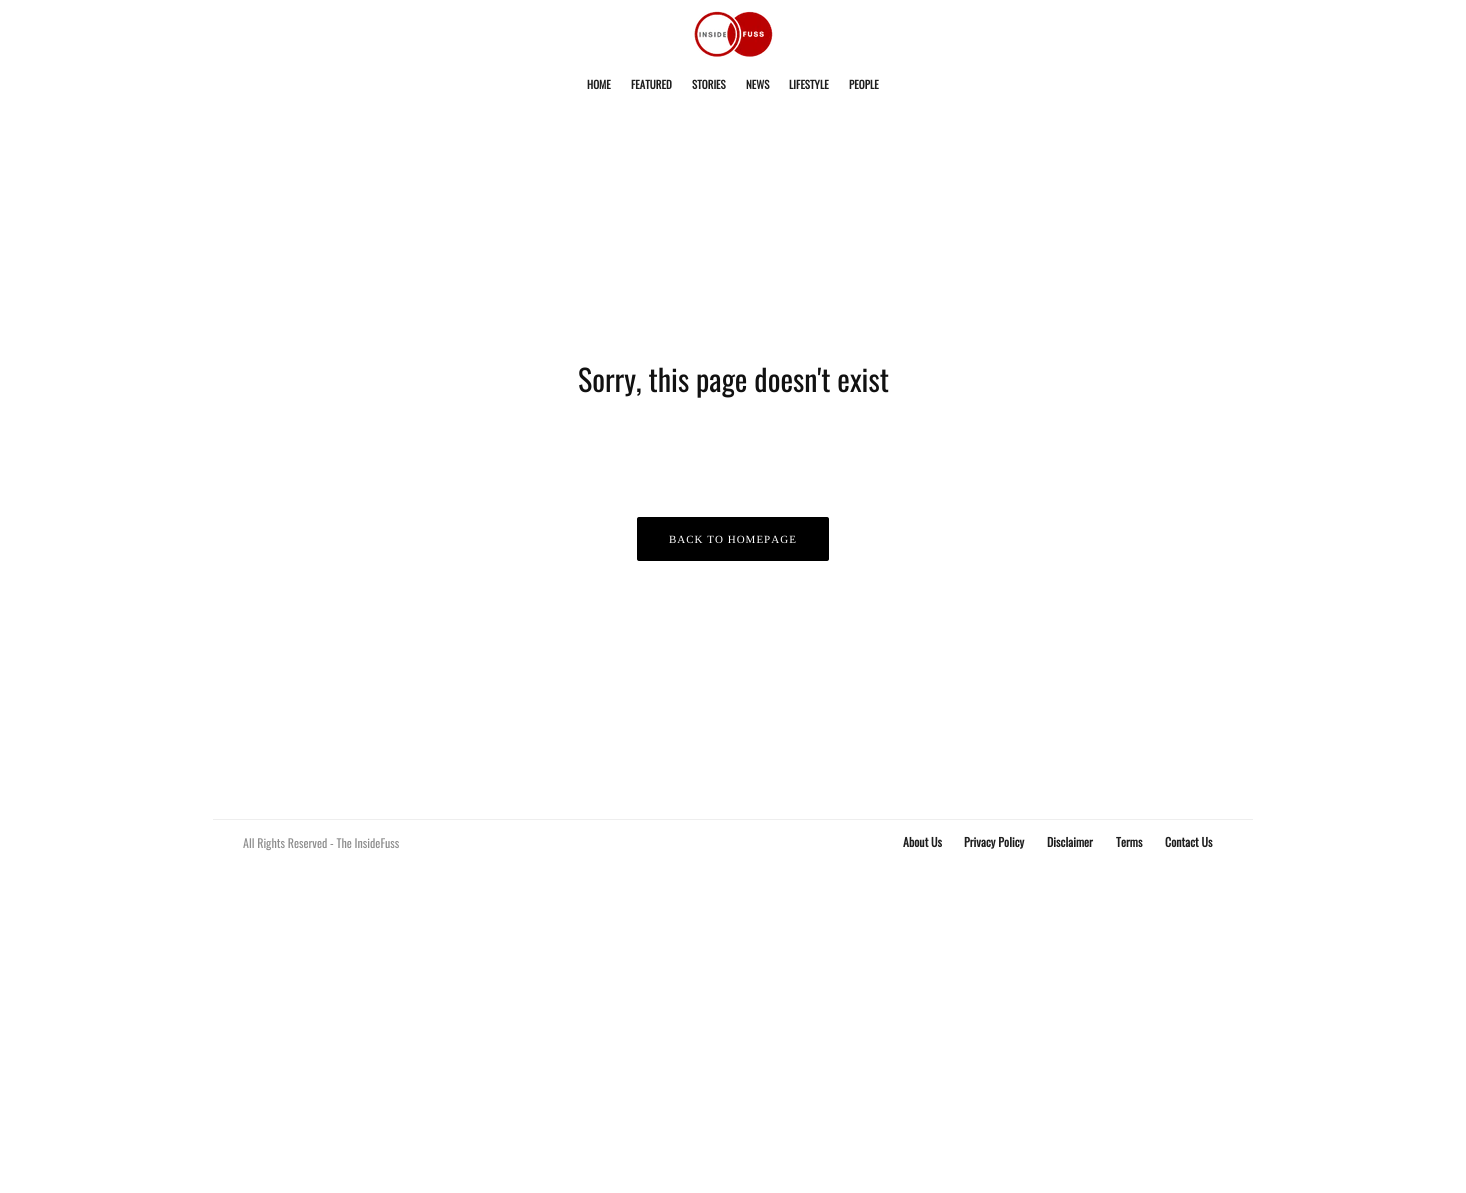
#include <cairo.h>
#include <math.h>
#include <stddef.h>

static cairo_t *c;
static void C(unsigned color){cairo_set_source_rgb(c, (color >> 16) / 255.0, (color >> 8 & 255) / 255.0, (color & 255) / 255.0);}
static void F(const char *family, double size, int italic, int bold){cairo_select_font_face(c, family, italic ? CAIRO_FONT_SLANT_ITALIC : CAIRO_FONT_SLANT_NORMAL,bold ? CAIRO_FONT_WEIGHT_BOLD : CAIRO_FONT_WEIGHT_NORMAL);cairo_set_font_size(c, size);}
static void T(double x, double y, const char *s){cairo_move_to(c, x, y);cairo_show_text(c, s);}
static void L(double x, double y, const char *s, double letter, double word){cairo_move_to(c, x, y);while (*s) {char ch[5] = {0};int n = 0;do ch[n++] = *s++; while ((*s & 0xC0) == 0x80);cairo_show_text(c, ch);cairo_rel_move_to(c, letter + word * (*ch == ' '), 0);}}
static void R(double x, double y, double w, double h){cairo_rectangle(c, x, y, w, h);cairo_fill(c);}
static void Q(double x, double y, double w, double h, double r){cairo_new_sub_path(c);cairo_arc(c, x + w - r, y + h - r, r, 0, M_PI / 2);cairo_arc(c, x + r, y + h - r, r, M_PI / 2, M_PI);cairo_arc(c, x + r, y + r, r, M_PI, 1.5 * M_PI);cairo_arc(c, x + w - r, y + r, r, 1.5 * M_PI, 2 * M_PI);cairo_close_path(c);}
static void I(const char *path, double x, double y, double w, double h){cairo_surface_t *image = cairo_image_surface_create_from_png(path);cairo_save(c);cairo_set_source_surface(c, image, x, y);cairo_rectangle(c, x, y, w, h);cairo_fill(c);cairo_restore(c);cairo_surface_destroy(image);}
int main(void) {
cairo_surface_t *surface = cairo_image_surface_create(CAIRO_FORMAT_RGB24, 1466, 1193);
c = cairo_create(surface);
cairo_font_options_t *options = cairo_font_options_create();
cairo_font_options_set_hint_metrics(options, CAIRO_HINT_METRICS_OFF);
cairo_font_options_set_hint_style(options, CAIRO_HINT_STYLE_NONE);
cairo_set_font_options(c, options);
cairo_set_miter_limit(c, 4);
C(0xffffff);
cairo_paint(c);
I("1.png",694,11,79,46);
F("Oswald",11,0,1);
C(0x1e1e1e);
T(587,89,"HOME");
T(631,89,"FEATURED");
T(692,89,"STORIES");
T(746,89,"NEWS");
T(789,89,"LIFESTYLE");
T(849,89,"PEOPLE");
F("Oswald",30,0,0);
C(0x111111);
T(578,392,"Sorry, this page doesn't exist");
C(0x000000);
Q(637,517,192,44,2);
cairo_fill(c);
F("Liberation Serif",11,0,0);
C(0xffffff);
L(669,543,"BACK TO HOMEPAGE",1,0);
C(0xeeeeee);
R(213,819,1040,1);
F("Oswald",12,0,0);
C(0x8e8e8e);
T(243,848,"All Rights Reserved - The InsideFuss");
F("Oswald",12,0,1);
C(0x1e1e1e);
T(903,847,"About Us");
T(964,847,"Privacy Policy");
T(1047,847,"Disclaimer");
T(1116,847,"Terms");
T(1165,847,"Contact Us");
cairo_surface_write_to_png(surface, "o.png");
cairo_font_options_destroy(options);
cairo_destroy(c);
cairo_surface_destroy(surface);
return 0;
}
